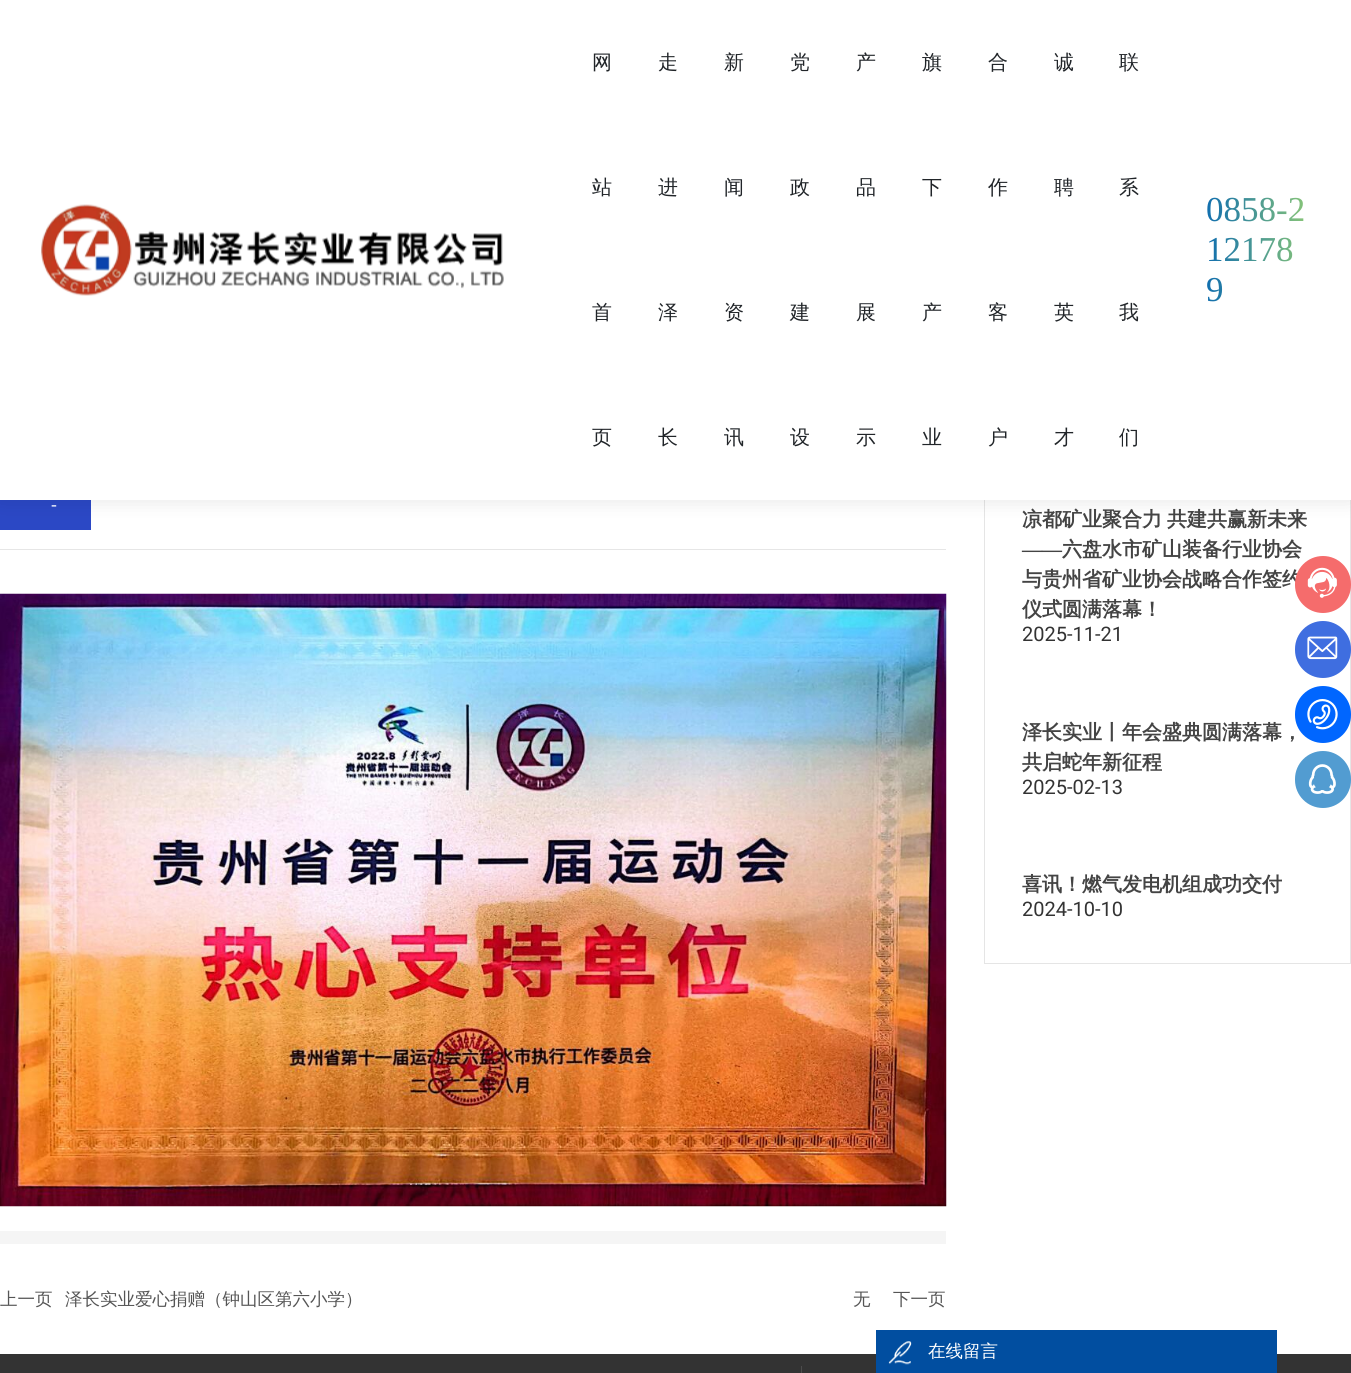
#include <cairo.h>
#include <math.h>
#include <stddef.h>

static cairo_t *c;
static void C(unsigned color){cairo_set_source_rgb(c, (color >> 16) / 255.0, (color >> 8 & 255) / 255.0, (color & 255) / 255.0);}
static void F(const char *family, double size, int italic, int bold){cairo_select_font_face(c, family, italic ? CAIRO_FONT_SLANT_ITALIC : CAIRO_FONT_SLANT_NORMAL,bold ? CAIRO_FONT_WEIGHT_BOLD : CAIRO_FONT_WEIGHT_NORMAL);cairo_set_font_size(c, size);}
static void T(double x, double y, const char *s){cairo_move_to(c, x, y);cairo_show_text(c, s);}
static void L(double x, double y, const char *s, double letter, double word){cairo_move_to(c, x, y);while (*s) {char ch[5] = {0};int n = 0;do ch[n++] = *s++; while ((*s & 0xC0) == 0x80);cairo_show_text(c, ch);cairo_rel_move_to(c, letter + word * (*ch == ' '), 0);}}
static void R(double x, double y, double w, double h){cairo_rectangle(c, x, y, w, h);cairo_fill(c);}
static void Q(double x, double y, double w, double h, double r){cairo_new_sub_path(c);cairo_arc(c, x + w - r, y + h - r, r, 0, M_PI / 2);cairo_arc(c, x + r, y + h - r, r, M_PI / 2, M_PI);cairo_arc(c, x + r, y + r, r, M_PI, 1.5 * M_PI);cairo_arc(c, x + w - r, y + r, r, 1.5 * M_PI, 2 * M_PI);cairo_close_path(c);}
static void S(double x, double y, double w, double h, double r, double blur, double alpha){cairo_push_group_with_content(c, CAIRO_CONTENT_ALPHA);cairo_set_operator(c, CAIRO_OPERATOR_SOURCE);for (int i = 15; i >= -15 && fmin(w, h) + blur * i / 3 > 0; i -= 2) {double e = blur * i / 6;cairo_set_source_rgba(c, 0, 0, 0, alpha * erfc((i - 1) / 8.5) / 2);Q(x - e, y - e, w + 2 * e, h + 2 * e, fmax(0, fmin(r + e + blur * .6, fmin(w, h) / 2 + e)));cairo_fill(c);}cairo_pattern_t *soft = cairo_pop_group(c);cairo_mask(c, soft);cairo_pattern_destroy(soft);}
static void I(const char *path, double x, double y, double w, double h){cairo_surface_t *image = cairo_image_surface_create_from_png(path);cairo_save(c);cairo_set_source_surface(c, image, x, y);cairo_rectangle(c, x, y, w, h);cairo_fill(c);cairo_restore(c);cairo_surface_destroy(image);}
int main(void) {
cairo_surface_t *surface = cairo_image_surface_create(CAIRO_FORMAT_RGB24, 1351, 1373);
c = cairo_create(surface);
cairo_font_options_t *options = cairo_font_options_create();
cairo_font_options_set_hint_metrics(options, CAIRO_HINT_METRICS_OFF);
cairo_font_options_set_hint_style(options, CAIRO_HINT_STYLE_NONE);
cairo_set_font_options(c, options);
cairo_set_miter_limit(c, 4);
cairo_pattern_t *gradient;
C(0xffffff);
cairo_paint(c);
C(0x2b48c5);
R(0,500,91,30);
cairo_rectangle(c,984.5,424.5,366,539);
C(0xe5e5e5);
cairo_set_line_width(c,1);
cairo_stroke(c);
C(0x000000);
S(0,1,1351,500,0,9.5,.1);
C(0xffffff);
R(0,0,1351,500);
I("1.png",41,204,463,92);
F("WenQuanYi Zen Hei Medium",20,0,0);
C(0x212529);
T(592,69,"网");
T(592,194,"站");
T(592,319,"首");
T(592,444,"页");
T(658,69,"走");
T(658,194,"进");
T(658,319,"泽");
T(658,444,"长");
T(724,69,"新");
T(724,194,"闻");
T(724,319,"资");
T(724,444,"讯");
T(790,69,"党");
T(790,194,"政");
T(790,319,"建");
T(790,444,"设");
T(856,69,"产");
T(856,194,"品");
T(856,319,"展");
T(856,444,"示");
T(922,69,"旗");
T(922,194,"下");
T(922,319,"产");
T(922,444,"业");
T(988,69,"合");
T(988,194,"作");
T(988,319,"客");
T(988,444,"户");
T(1054,69,"诚");
T(1054,194,"聘");
T(1054,319,"英");
T(1054,444,"才");
T(1119,69,"联");
T(1119,194,"系");
T(1119,319,"我");
T(1119,444,"们");
F("Liberation Serif",35,0,0);
gradient = cairo_pattern_create_linear(1206,250,1311,250);
cairo_pattern_add_color_stop_rgba(gradient,0,0.063,0.431,0.686,1);
cairo_pattern_add_color_stop_rgba(gradient,1,0.549,0.784,0.459,1);
cairo_set_source(c,gradient);
cairo_pattern_destroy(gradient);
T(1206,221,"0858-2");
T(1206,261,"12178");
T(1206,301,"9");
F("Liberation Serif",17.5,0,0);
C(0xffffff);
T(51,510,"-");
C(0xe6e6e6);
R(0,549,946,1);
I("2.png",0,593,947,614);
C(0xf5f5f5);
R(0,1231,946,13);
F("WenQuanYi Zen Hei Medium",17.5,0,0);
C(0x555555);
T(0,1305,"上一页");
T(65,1305,"泽长实业爱心捐赠（钟山区第六小学）");
T(853,1305,"无");
T(893,1305,"下一页");
F("WenQuanYi Zen Hei",20,0,1);
C(0x444444);
L(1022,526,"凉都矿业聚合力 共建共赢新未来",0,-1);
F("Liberation Serif",20,0,1);
T(1022,556,"——");
F("WenQuanYi Zen Hei",20,0,1);
T(1062,556,"六盘水市矿山装备行业协会");
T(1022,586,"与贵州省矿业协会战略合作签约");
T(1022,616,"仪式圆满落幕！");
F("Roboto",20,0,0);
C(0x333333);
T(1022,641,"2025-11-21");
F("WenQuanYi Zen Hei",20,0,1);
C(0x444444);
T(1022,739,"泽长实业丨年会盛典圆满落幕，");
T(1022,769,"共启蛇年新征程");
F("Roboto",20,0,0);
C(0x333333);
T(1022,794,"2025-02-13");
F("WenQuanYi Zen Hei",20,0,1);
C(0x444444);
T(1022,891,"喜讯！燃气发电机组成功交付");
F("Roboto",20,0,0);
C(0x333333);
T(1022,916,"2024-10-10");
R(0,1354,1351,19);
C(0x014ea0);
R(1274,1330,3,43);
R(876,1330,398,43);
I("3.png",888,1341,24,24);
F("WenQuanYi Zen Hei Medium",17.5,0,0);
C(0xffffff);
T(928,1357,"在线留言");
C(0x4c4c4c);
R(801,1366,1,7);
C(0xf56c6c);
Q(1295,556,56,57,28);
cairo_fill(c);
I("4.png",1307,567,30,31);
C(0x3f6ee0);
Q(1295,621,56,57,28);
cairo_fill(c);
I("5.png",1307,636,31,24);
C(0x0066ff);
Q(1295,686,56,57,28);
cairo_fill(c);
I("6.png",1307,699,31,31);
C(0x529cd1);
Q(1295,751,56,57,28);
cairo_fill(c);
I("7.png",1308,764,28,30);
cairo_surface_write_to_png(surface, "o.png");
cairo_font_options_destroy(options);
cairo_destroy(c);
cairo_surface_destroy(surface);
return 0;
}
